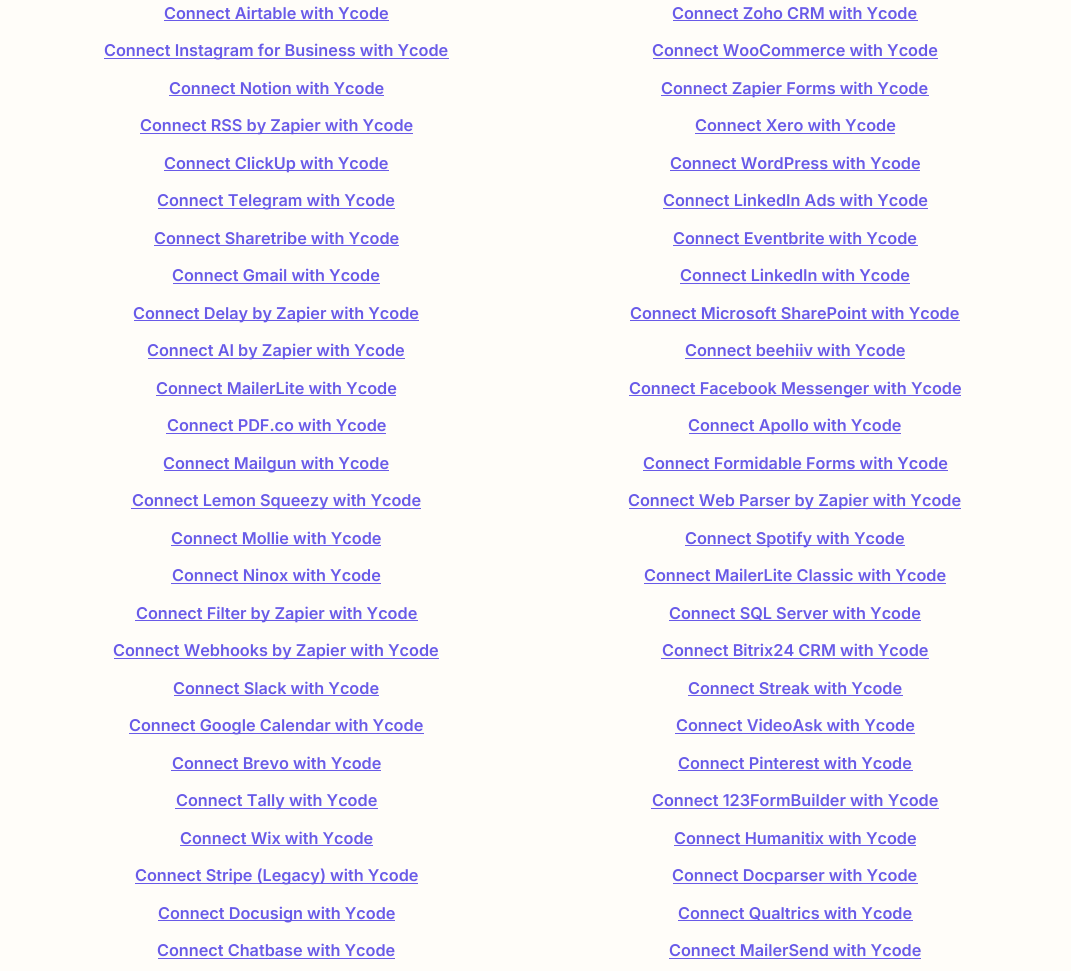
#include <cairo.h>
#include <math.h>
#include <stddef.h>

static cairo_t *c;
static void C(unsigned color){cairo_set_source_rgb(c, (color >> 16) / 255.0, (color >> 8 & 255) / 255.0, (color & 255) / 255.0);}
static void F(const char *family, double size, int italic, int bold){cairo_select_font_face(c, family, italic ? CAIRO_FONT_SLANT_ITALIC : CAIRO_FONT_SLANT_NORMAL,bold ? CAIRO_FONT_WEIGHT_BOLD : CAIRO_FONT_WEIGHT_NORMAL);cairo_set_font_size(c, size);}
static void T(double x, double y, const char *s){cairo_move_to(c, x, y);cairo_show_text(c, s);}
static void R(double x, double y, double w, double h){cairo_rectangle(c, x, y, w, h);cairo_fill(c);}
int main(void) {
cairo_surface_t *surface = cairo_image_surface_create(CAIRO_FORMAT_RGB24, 1071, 971);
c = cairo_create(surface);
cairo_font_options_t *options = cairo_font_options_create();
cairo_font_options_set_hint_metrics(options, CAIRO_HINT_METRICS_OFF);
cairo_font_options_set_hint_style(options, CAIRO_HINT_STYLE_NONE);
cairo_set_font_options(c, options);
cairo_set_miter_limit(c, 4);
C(0xfffdf9);
cairo_paint(c);
F("Inter SemiBold",16.25,0,0);
C(0x695be8);
T(164,19,"Connect Airtable with Ycode");
R(164,20,225,1);
T(672,19,"Connect Zoho CRM with Ycode");
R(673,20,245,1);
R(104,58,345,1);
T(104,56,"Connect Instagram for Business with Ycode");
T(652,56,"Connect WooCommerce with Ycode");
R(653,58,285,1);
T(169,94,"Connect Notion with Ycode");
R(169,95,215,1);
R(661,95,268,1);
T(661,94,"Connect Zapier Forms with Ycode");
R(140,133,273,1);
T(140,131,"Connect RSS by Zapier with Ycode");
T(695,131,"Connect Xero with Ycode");
R(695,133,200,1);
R(164,170,225,1);
T(164,169,"Connect ClickUp with Ycode");
T(670,169,"Connect WordPress with Ycode");
R(670,170,250,1);
R(158,208,237,1);
T(157,206,"Connect Telegram with Ycode");
T(663,206,"Connect LinkedIn Ads with Ycode");
R(663,208,265,1);
T(154,244,"Connect Sharetribe with Ycode");
R(154,245,245,1);
T(673,244,"Connect Eventbrite with Ycode");
R(673,245,245,1);
T(172,281,"Connect Gmail with Ycode");
R(173,283,207,1);
T(680,281,"Connect LinkedIn with Ycode");
R(680,283,230,1);
R(134,320,285,1);
T(133,319,"Connect Delay by Zapier with Ycode");
T(630,319,"Connect Microsoft SharePoint with Ycode");
R(630,320,330,1);
R(148,358,257,1);
T(147,356,"Connect AI by Zapier with Ycode");
T(685,356,"Connect beehiiv with Ycode");
R(685,358,220,1);
T(156,394,"Connect MailerLite with Ycode");
R(156,395,240,1);
R(629,395,332,1);
T(629,394,"Connect Facebook Messenger with Ycode");
T(167,431,"Connect PDF.co with Ycode");
R(166,433,220,1);
R(689,433,212,1);
T(688,431,"Connect Apollo with Ycode");
R(164,470,225,1);
T(163,469,"Connect Mailgun with Ycode");
T(643,469,"Connect Formidable Forms with Ycode");
R(643,470,305,1);
R(131,508,290,1);
T(132,506,"Connect Lemon Squeezy with Ycode");
R(629,508,332,1);
T(628,506,"Connect Web Parser by Zapier with Ycode");
T(171,544,"Connect Mollie with Ycode");
R(171,545,210,1);
R(685,545,220,1);
T(685,544,"Connect Spotify with Ycode");
T(172,581,"Connect Ninox with Ycode");
R(171,583,210,1);
T(644,581,"Connect MailerLite Classic with Ycode");
R(644,583,302,1);
R(135,620,283,1);
T(136,619,"Connect Filter by Zapier with Ycode");
T(669,619,"Connect SQL Server with Ycode");
R(669,620,252,1);
R(114,658,325,1);
T(113,656,"Connect Webhooks by Zapier with Ycode");
T(662,656,"Connect Bitrix24 CRM with Ycode");
R(661,658,268,1);
T(173,694,"Connect Slack with Ycode");
R(174,695,205,1);
T(688,694,"Connect Streak with Ycode");
R(688,695,215,1);
R(129,733,295,1);
T(129,731,"Connect Google Calendar with Ycode");
T(676,731,"Connect VideoAsk with Ycode");
R(675,733,240,1);
T(172,769,"Connect Brevo with Ycode");
R(171,770,210,1);
T(678,769,"Connect Pinterest with Ycode");
R(678,770,235,1);
R(175,808,203,1);
T(176,806,"Connect Tally with Ycode");
T(652,806,"Connect 123FormBuilder with Ycode");
R(651,808,288,1);
T(180,844,"Connect Wix with Ycode");
R(180,845,193,1);
T(674,844,"Connect Humanitix with Ycode");
R(674,845,242,1);
R(135,883,283,1);
T(135,881,"Connect Stripe (Legacy) with Ycode");
R(673,883,245,1);
T(672,881,"Connect Docparser with Ycode");
R(158,920,237,1);
T(158,919,"Connect Docusign with Ycode");
T(678,919,"Connect Qualtrics with Ycode");
R(678,920,235,1);
T(157,956,"Connect Chatbase with Ycode");
R(158,958,237,1);
T(669,956,"Connect MailerSend with Ycode");
R(669,958,252,1);
cairo_surface_write_to_png(surface, "o.png");
cairo_font_options_destroy(options);
cairo_destroy(c);
cairo_surface_destroy(surface);
return 0;
}
